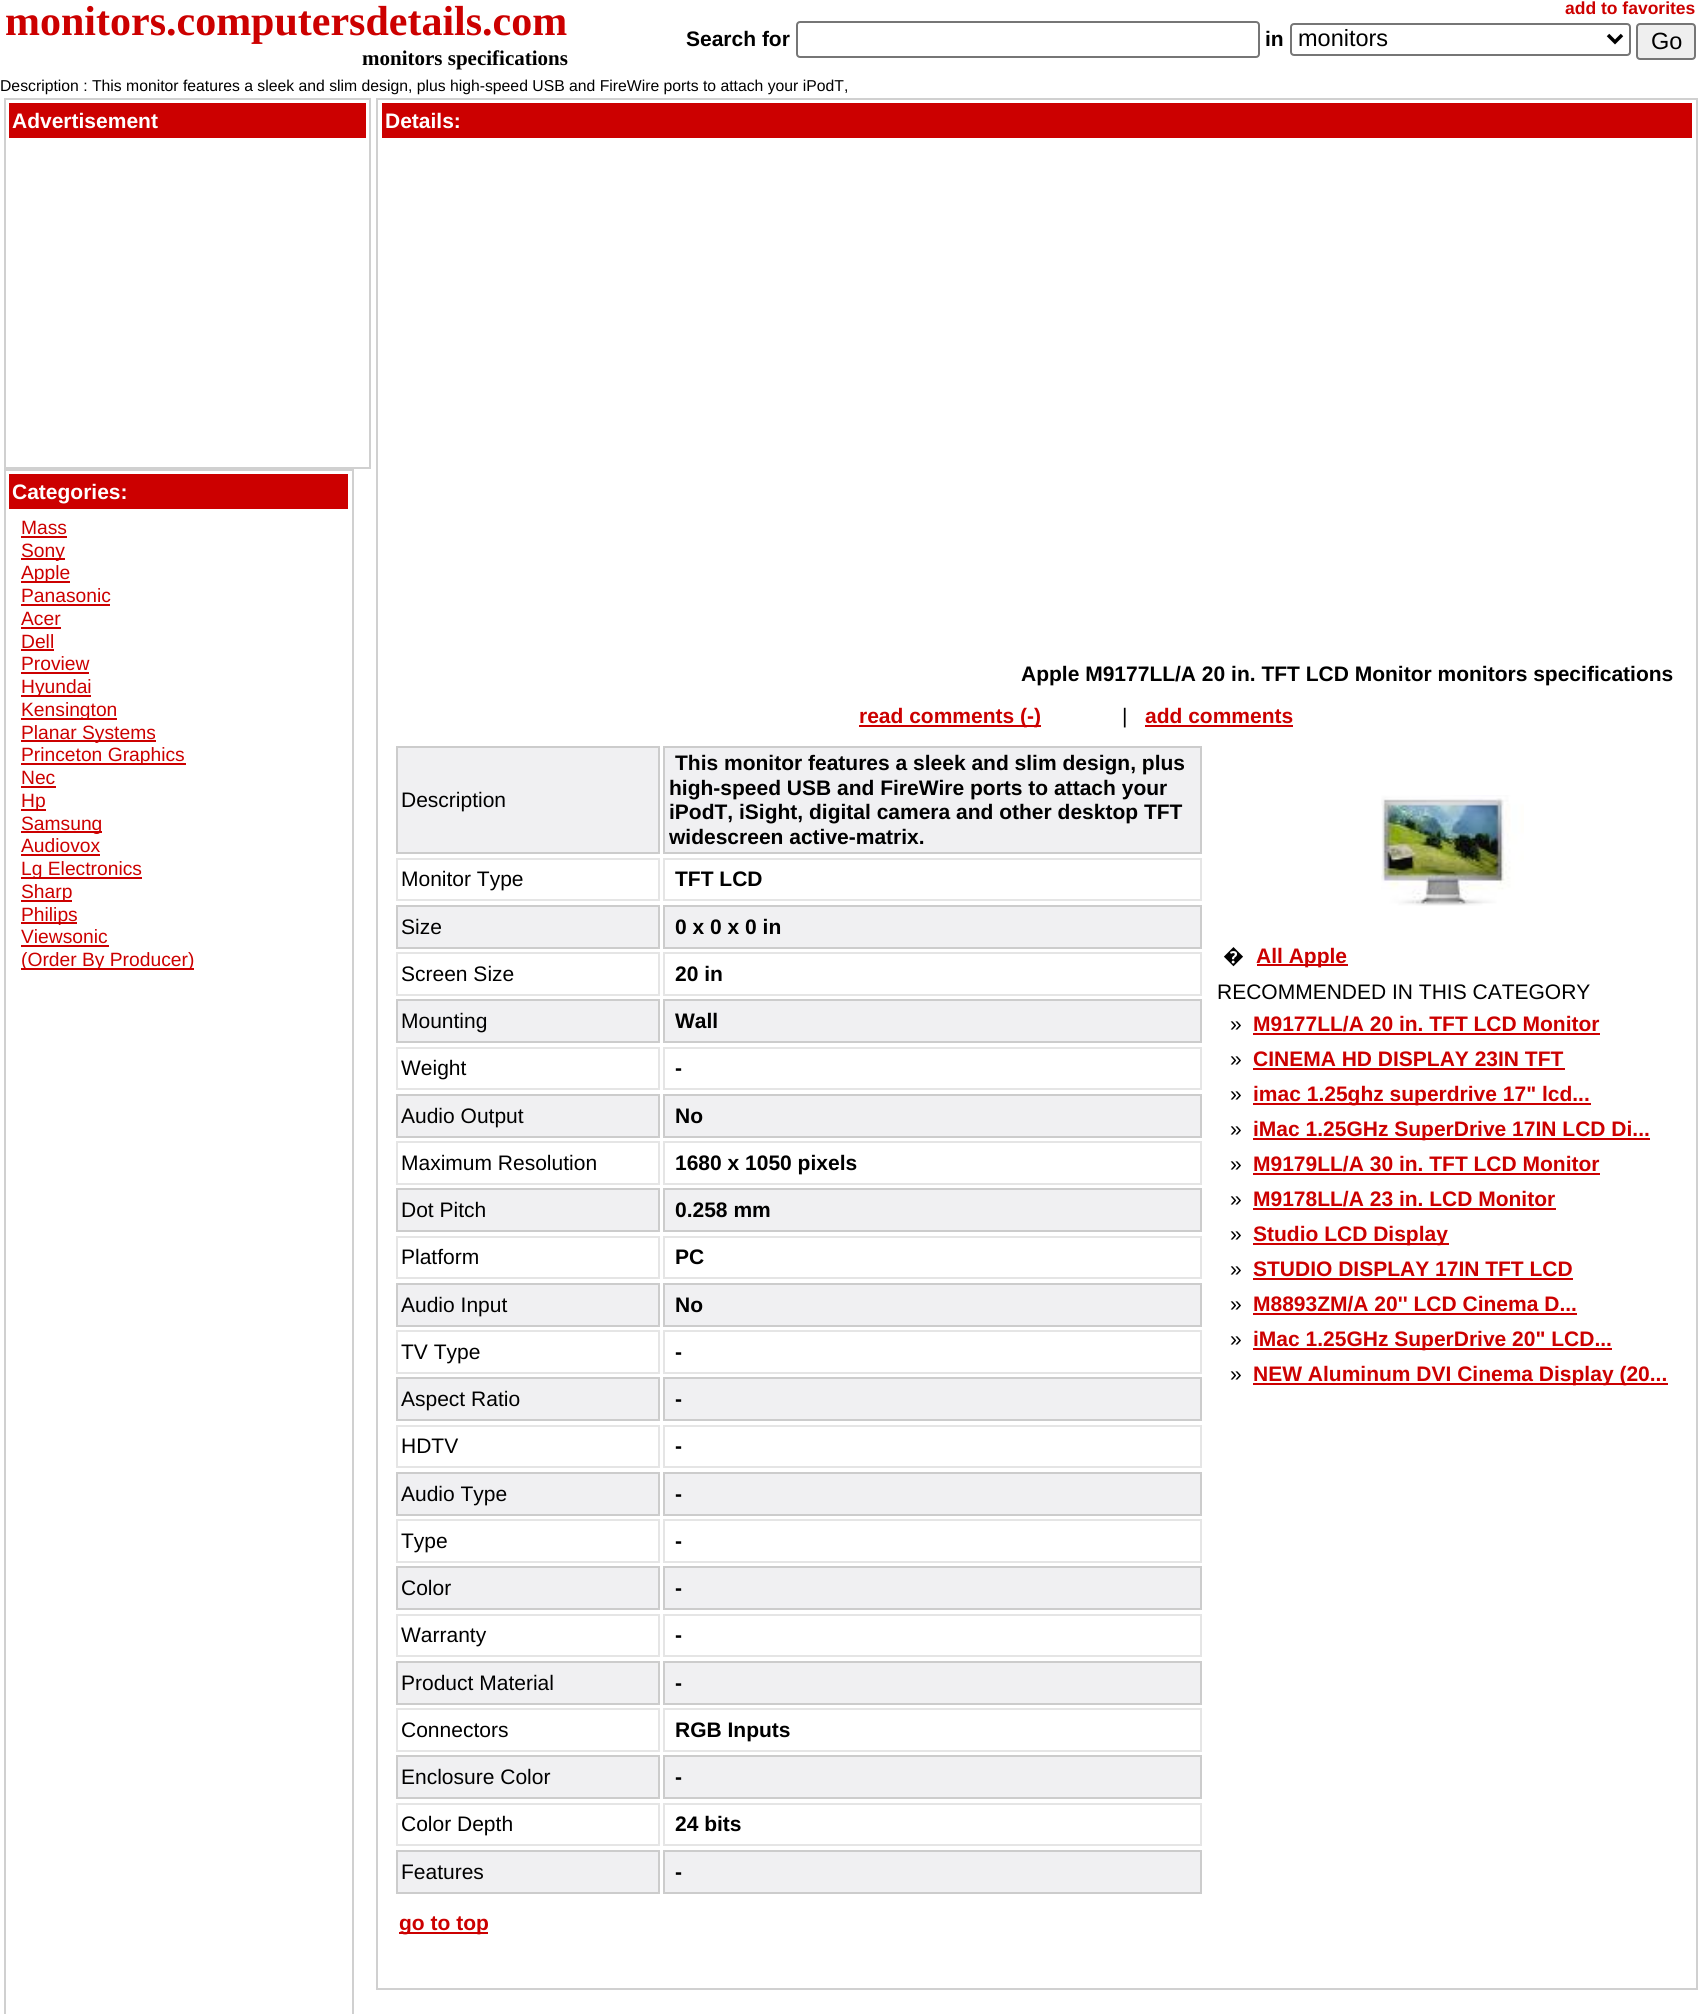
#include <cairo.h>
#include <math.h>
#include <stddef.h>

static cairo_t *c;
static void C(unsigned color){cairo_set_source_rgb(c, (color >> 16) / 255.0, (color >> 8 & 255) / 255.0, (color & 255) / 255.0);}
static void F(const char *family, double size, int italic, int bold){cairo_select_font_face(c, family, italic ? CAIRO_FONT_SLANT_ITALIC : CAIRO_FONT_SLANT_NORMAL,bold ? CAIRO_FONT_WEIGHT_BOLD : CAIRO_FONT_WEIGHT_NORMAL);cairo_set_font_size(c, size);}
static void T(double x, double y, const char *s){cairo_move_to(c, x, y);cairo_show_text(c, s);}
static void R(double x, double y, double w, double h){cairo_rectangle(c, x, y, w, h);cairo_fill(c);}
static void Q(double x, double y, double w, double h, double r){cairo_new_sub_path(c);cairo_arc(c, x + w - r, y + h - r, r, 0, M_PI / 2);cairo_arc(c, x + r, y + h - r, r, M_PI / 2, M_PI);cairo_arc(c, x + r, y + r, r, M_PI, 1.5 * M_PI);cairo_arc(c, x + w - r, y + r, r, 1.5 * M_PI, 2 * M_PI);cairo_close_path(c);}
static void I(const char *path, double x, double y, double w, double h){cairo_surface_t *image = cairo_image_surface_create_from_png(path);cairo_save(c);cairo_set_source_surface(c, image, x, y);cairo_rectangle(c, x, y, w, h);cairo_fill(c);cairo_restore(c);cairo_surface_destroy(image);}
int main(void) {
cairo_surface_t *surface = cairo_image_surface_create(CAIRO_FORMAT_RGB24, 1701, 2014);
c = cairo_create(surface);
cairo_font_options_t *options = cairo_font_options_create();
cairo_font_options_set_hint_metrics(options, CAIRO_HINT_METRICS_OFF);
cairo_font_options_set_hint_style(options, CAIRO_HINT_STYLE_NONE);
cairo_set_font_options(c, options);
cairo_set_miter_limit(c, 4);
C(0xffffff);
cairo_paint(c);
F("Liberation Serif",42,0,1);
C(0xcc0000);
T(5,35,"monitors.computersdetails.com");
F("Liberation Serif",21,0,1);
C(0x000000);
T(362,65,"monitors specifications");
F("Liberation Sans",17.5,0,1);
C(0xcc0000);
T(1565,14,"add to favorites");
F("Liberation Sans",21,0,1);
C(0x000000);
T(686,46,"Search for");
Q(797,22,462,35,3);
C(0x767676);
cairo_stroke(c);
C(0x000000);
T(1265,46,"in");
Q(1291,24,339,31,3);
C(0x767676);
cairo_stroke(c);
cairo_new_path(c);
cairo_move_to(c,1608,35);
cairo_line_to(c,1615,42);
cairo_line_to(c,1622,35);
C(0x000000);
cairo_set_line_width(c,3.5);
cairo_stroke(c);
F("Liberation Sans",23.5,0,0);
T(1298,46,"monitors");
C(0xefefef);
Q(1637,24,58,35,3);
cairo_fill_preserve(c);
C(0x767676);
cairo_set_line_width(c,2);
cairo_stroke(c);
C(0x000000);
T(1651,49,"Go");
F("Liberation Sans",15.75,0,0);
T(0,91,"Description : This monitor features a sleek and slim design, plus high-speed USB and FireWire ports to attach your iPodT,");
cairo_rectangle(c,5,99,365,369);
C(0xd0d0d0);
cairo_stroke(c);
C(0xcc0000);
R(9,103,357,35);
F("Liberation Sans",21,0,1);
C(0xffffff);
T(12,128,"Advertisement");
cairo_rectangle(c,5,470,348,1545);
C(0xd0d0d0);
cairo_stroke(c);
C(0xcc0000);
R(9,474,339,35);
C(0xffffff);
T(12,499,"Categories:");
F("Liberation Sans",19.25,0,0);
C(0xcc0000);
T(21,534,"Mass");
R(21,536,46,2);
R(21,558,44,2);
T(21,557,"Sony");
R(21,581,49,2);
T(21,579,"Apple");
T(21,602,"Panasonic");
R(21,604,89,2);
T(21,625,"Acer");
R(21,627,40,2);
T(21,648,"Dell");
R(21,649,33,2);
T(21,670,"Proview");
R(21,672,68,2);
R(21,695,70,2);
T(21,693,"Hyundai");
R(21,718,96,2);
T(21,716,"Kensington");
R(21,740,135,2);
T(21,739,"Planar Systems");
R(21,763,165,2);
T(21,761,"Princeton Graphics");
T(21,784,"Nec");
R(21,786,35,2);
R(21,809,25,2);
T(21,807,"Hp");
R(21,831,81,2);
T(21,830,"Samsung");
T(21,852,"Audiovox");
R(21,854,79,2);
R(21,877,121,2);
T(21,875,"Lg Electronics");
R(21,900,51,2);
T(21,898,"Sharp");
R(21,922,56,2);
T(21,921,"Philips");
T(21,943,"Viewsonic");
R(21,945,88,2);
R(21,968,173,2);
T(21,966,"(Order By Producer)");
cairo_rectangle(c,377,99,1320,1890);
C(0xd0d0d0);
cairo_stroke(c);
C(0xcc0000);
R(382,103,1310,35);
F("Liberation Sans",21,0,1);
C(0xffffff);
T(385,128,"Details:");
C(0x000000);
T(1021,681,"Apple M9177LL/A 20 in. TFT LCD Monitor monitors specifications");
C(0xcc0000);
R(859,725,182,2);
T(859,723,"read comments (-)");
F("Liberation Sans",21,0,0);
C(0x000000);
T(1122,723,"|");
F("Liberation Sans",21,0,1);
C(0xcc0000);
T(1145,723,"add comments");
R(1145,725,148,2);
C(0xf0f0f2);
cairo_rectangle(c,397,747,262,106);
cairo_fill_preserve(c);
C(0xcccccc);
cairo_stroke(c);
F("Liberation Sans",21,0,0);
C(0x000000);
T(401,807,"Description");
C(0xf0f0f2);
cairo_rectangle(c,664,747,537,106);
cairo_fill_preserve(c);
C(0xcccccc);
cairo_stroke(c);
F("Liberation Sans",21,0,1);
C(0x000000);
T(675,770,"This monitor features a sleek and slim design, plus");
T(669,795,"high-speed USB and FireWire ports to attach your");
T(669,819,"iPodT, iSight, digital camera and other desktop TFT");
T(669,844,"widescreen active-matrix.");
cairo_rectangle(c,397,859,262,41);
C(0xe5e5e5);
cairo_stroke(c);
F("Liberation Sans",21,0,0);
C(0x000000);
T(401,886,"Monitor Type");
cairo_rectangle(c,664,859,537,41);
C(0xe5e5e5);
cairo_stroke(c);
F("Liberation Sans",21,0,1);
C(0x000000);
T(675,886,"TFT LCD");
C(0xf0f0f2);
cairo_rectangle(c,397,906,262,42);
cairo_fill_preserve(c);
C(0xcccccc);
cairo_stroke(c);
F("Liberation Sans",21,0,0);
C(0x000000);
T(401,934,"Size");
C(0xf0f0f2);
cairo_rectangle(c,664,906,537,42);
cairo_fill_preserve(c);
C(0xcccccc);
cairo_stroke(c);
F("Liberation Sans",21,0,1);
C(0x000000);
T(675,934,"0 x 0 x 0 in");
cairo_rectangle(c,397,953,262,42);
C(0xe5e5e5);
cairo_stroke(c);
F("Liberation Sans",21,0,0);
C(0x000000);
T(401,981,"Screen Size");
cairo_rectangle(c,664,953,537,42);
C(0xe5e5e5);
cairo_stroke(c);
F("Liberation Sans",21,0,1);
C(0x000000);
T(675,981,"20 in");
C(0xf0f0f2);
cairo_rectangle(c,397,1000,262,42);
cairo_fill_preserve(c);
C(0xcccccc);
cairo_stroke(c);
F("Liberation Sans",21,0,0);
C(0x000000);
T(401,1028,"Mounting");
C(0xf0f0f2);
cairo_rectangle(c,664,1000,537,42);
cairo_fill_preserve(c);
C(0xcccccc);
cairo_stroke(c);
F("Liberation Sans",21,0,1);
C(0x000000);
T(675,1028,"Wall");
cairo_rectangle(c,397,1048,262,41);
C(0xe5e5e5);
cairo_stroke(c);
F("Liberation Sans",21,0,0);
C(0x000000);
T(401,1075,"Weight");
cairo_rectangle(c,664,1048,537,41);
C(0xe5e5e5);
cairo_stroke(c);
F("Liberation Sans",21,0,1);
C(0x000000);
T(675,1075,"-");
C(0xf0f0f2);
cairo_rectangle(c,397,1095,262,42);
cairo_fill_preserve(c);
C(0xcccccc);
cairo_stroke(c);
F("Liberation Sans",21,0,0);
C(0x000000);
T(401,1123,"Audio Output");
C(0xf0f0f2);
cairo_rectangle(c,664,1095,537,42);
cairo_fill_preserve(c);
C(0xcccccc);
cairo_stroke(c);
F("Liberation Sans",21,0,1);
C(0x000000);
T(675,1123,"No");
cairo_rectangle(c,397,1142,262,42);
C(0xe5e5e5);
cairo_stroke(c);
F("Liberation Sans",21,0,0);
C(0x000000);
T(401,1170,"Maximum Resolution");
cairo_rectangle(c,664,1142,537,42);
C(0xe5e5e5);
cairo_stroke(c);
F("Liberation Sans",21,0,1);
C(0x000000);
T(675,1170,"1680 x 1050 pixels");
C(0xf0f0f2);
cairo_rectangle(c,397,1189,262,42);
cairo_fill_preserve(c);
C(0xcccccc);
cairo_stroke(c);
F("Liberation Sans",21,0,0);
C(0x000000);
T(401,1217,"Dot Pitch");
C(0xf0f0f2);
cairo_rectangle(c,664,1189,537,42);
cairo_fill_preserve(c);
C(0xcccccc);
cairo_stroke(c);
F("Liberation Sans",21,0,1);
C(0x000000);
T(675,1217,"0.258 mm");
cairo_rectangle(c,397,1237,262,41);
C(0xe5e5e5);
cairo_stroke(c);
F("Liberation Sans",21,0,0);
C(0x000000);
T(401,1264,"Platform");
cairo_rectangle(c,664,1237,537,41);
C(0xe5e5e5);
cairo_stroke(c);
F("Liberation Sans",21,0,1);
C(0x000000);
T(675,1264,"PC");
C(0xf0f0f2);
cairo_rectangle(c,397,1284,262,42);
cairo_fill_preserve(c);
C(0xcccccc);
cairo_stroke(c);
F("Liberation Sans",21,0,0);
C(0x000000);
T(401,1312,"Audio Input");
C(0xf0f0f2);
cairo_rectangle(c,664,1284,537,42);
cairo_fill_preserve(c);
C(0xcccccc);
cairo_stroke(c);
F("Liberation Sans",21,0,1);
C(0x000000);
T(675,1312,"No");
cairo_rectangle(c,397,1331,262,42);
C(0xe5e5e5);
cairo_stroke(c);
F("Liberation Sans",21,0,0);
C(0x000000);
T(401,1359,"TV Type");
cairo_rectangle(c,664,1331,537,42);
C(0xe5e5e5);
cairo_stroke(c);
F("Liberation Sans",21,0,1);
C(0x000000);
T(675,1359,"-");
C(0xf0f0f2);
cairo_rectangle(c,397,1378,262,42);
cairo_fill_preserve(c);
C(0xcccccc);
cairo_stroke(c);
F("Liberation Sans",21,0,0);
C(0x000000);
T(401,1406,"Aspect Ratio");
C(0xf0f0f2);
cairo_rectangle(c,664,1378,537,42);
cairo_fill_preserve(c);
C(0xcccccc);
cairo_stroke(c);
F("Liberation Sans",21,0,1);
C(0x000000);
T(675,1406,"-");
cairo_rectangle(c,397,1426,262,41);
C(0xe5e5e5);
cairo_stroke(c);
F("Liberation Sans",21,0,0);
C(0x000000);
T(401,1453,"HDTV");
cairo_rectangle(c,664,1426,537,41);
C(0xe5e5e5);
cairo_stroke(c);
F("Liberation Sans",21,0,1);
C(0x000000);
T(675,1453,"-");
C(0xf0f0f2);
cairo_rectangle(c,397,1473,262,42);
cairo_fill_preserve(c);
C(0xcccccc);
cairo_stroke(c);
F("Liberation Sans",21,0,0);
C(0x000000);
T(401,1501,"Audio Type");
C(0xf0f0f2);
cairo_rectangle(c,664,1473,537,42);
cairo_fill_preserve(c);
C(0xcccccc);
cairo_stroke(c);
F("Liberation Sans",21,0,1);
C(0x000000);
T(675,1501,"-");
cairo_rectangle(c,397,1520,262,42);
C(0xe5e5e5);
cairo_stroke(c);
F("Liberation Sans",21,0,0);
C(0x000000);
T(401,1548,"Type");
cairo_rectangle(c,664,1520,537,42);
C(0xe5e5e5);
cairo_stroke(c);
F("Liberation Sans",21,0,1);
C(0x000000);
T(675,1548,"-");
C(0xf0f0f2);
cairo_rectangle(c,397,1567,262,42);
cairo_fill_preserve(c);
C(0xcccccc);
cairo_stroke(c);
F("Liberation Sans",21,0,0);
C(0x000000);
T(401,1595,"Color");
C(0xf0f0f2);
cairo_rectangle(c,664,1567,537,42);
cairo_fill_preserve(c);
C(0xcccccc);
cairo_stroke(c);
F("Liberation Sans",21,0,1);
C(0x000000);
T(675,1595,"-");
cairo_rectangle(c,397,1615,262,41);
C(0xe5e5e5);
cairo_stroke(c);
F("Liberation Sans",21,0,0);
C(0x000000);
T(401,1642,"Warranty");
cairo_rectangle(c,664,1615,537,41);
C(0xe5e5e5);
cairo_stroke(c);
F("Liberation Sans",21,0,1);
C(0x000000);
T(675,1642,"-");
C(0xf0f0f2);
cairo_rectangle(c,397,1662,262,42);
cairo_fill_preserve(c);
C(0xcccccc);
cairo_stroke(c);
F("Liberation Sans",21,0,0);
C(0x000000);
T(401,1690,"Product Material");
C(0xf0f0f2);
cairo_rectangle(c,664,1662,537,42);
cairo_fill_preserve(c);
C(0xcccccc);
cairo_stroke(c);
F("Liberation Sans",21,0,1);
C(0x000000);
T(675,1690,"-");
cairo_rectangle(c,397,1709,262,42);
C(0xe5e5e5);
cairo_stroke(c);
F("Liberation Sans",21,0,0);
C(0x000000);
T(401,1737,"Connectors");
cairo_rectangle(c,664,1709,537,42);
C(0xe5e5e5);
cairo_stroke(c);
F("Liberation Sans",21,0,1);
C(0x000000);
T(675,1737,"RGB Inputs");
C(0xf0f0f2);
cairo_rectangle(c,397,1756,262,42);
cairo_fill_preserve(c);
C(0xcccccc);
cairo_stroke(c);
F("Liberation Sans",21,0,0);
C(0x000000);
T(401,1784,"Enclosure Color");
C(0xf0f0f2);
cairo_rectangle(c,664,1756,537,42);
cairo_fill_preserve(c);
C(0xcccccc);
cairo_stroke(c);
F("Liberation Sans",21,0,1);
C(0x000000);
T(675,1784,"-");
cairo_rectangle(c,397,1804,262,41);
C(0xe5e5e5);
cairo_stroke(c);
F("Liberation Sans",21,0,0);
C(0x000000);
T(401,1831,"Color Depth");
cairo_rectangle(c,664,1804,537,41);
C(0xe5e5e5);
cairo_stroke(c);
F("Liberation Sans",21,0,1);
C(0x000000);
T(675,1831,"24 bits");
C(0xf0f0f2);
cairo_rectangle(c,397,1851,262,42);
cairo_fill_preserve(c);
C(0xcccccc);
cairo_stroke(c);
F("Liberation Sans",21,0,0);
C(0x000000);
T(401,1879,"Features");
C(0xf0f0f2);
cairo_rectangle(c,664,1851,537,42);
cairo_fill_preserve(c);
C(0xcccccc);
cairo_stroke(c);
F("Liberation Sans",21,0,1);
C(0x000000);
T(675,1879,"-");
C(0xcc0000);
R(399,1932,89,2);
T(399,1930,"go to top");
I("1.png",1381,795,143,111);
F("Noto Sans",21,0,0);
C(0x000000);
T(1223,963,"�");
C(0xcc0000);
R(1257,964,91,2);
F("Liberation Sans",21,0,1);
T(1256,963,"All Apple");
F("Liberation Sans",21,0,0);
C(0x000000);
T(1217,999,"RECOMMENDED IN THIS CATEGORY");
T(1230,1031,"»");
F("Liberation Sans",21,0,1);
C(0xcc0000);
T(1253,1031,"M9177LL/A 20 in. TFT LCD Monitor");
R(1253,1033,347,2);
F("Liberation Sans",21,0,0);
C(0x000000);
T(1230,1066,"»");
F("Liberation Sans",21,0,1);
C(0xcc0000);
T(1253,1066,"CINEMA HD DISPLAY 23IN TFT");
R(1253,1068,312,2);
F("Liberation Sans",21,0,0);
C(0x000000);
T(1230,1101,"»");
C(0xcc0000);
R(1253,1103,338,2);
F("Liberation Sans",21,0,1);
T(1253,1101,"imac 1.25ghz superdrive 17\" lcd...");
F("Liberation Sans",21,0,0);
C(0x000000);
T(1230,1136,"»");
C(0xcc0000);
R(1253,1138,397,2);
F("Liberation Sans",21,0,1);
T(1253,1136,"iMac 1.25GHz SuperDrive 17IN LCD Di...");
F("Liberation Sans",21,0,0);
C(0x000000);
T(1230,1171,"»");
F("Liberation Sans",21,0,1);
C(0xcc0000);
T(1253,1171,"M9179LL/A 30 in. TFT LCD Monitor");
R(1253,1173,347,2);
F("Liberation Sans",21,0,0);
C(0x000000);
T(1230,1206,"»");
F("Liberation Sans",21,0,1);
C(0xcc0000);
T(1253,1206,"M9178LL/A 23 in. LCD Monitor");
R(1253,1208,303,2);
F("Liberation Sans",21,0,0);
C(0x000000);
T(1230,1241,"»");
C(0xcc0000);
R(1253,1243,196,2);
F("Liberation Sans",21,0,1);
T(1253,1241,"Studio LCD Display");
F("Liberation Sans",21,0,0);
C(0x000000);
T(1230,1276,"»");
F("Liberation Sans",21,0,1);
C(0xcc0000);
T(1253,1276,"STUDIO DISPLAY 17IN TFT LCD");
R(1253,1278,320,2);
F("Liberation Sans",21,0,0);
C(0x000000);
T(1230,1311,"»");
F("Liberation Sans",21,0,1);
C(0xcc0000);
T(1253,1311,"M8893ZM/A 20'' LCD Cinema D...");
R(1253,1313,324,2);
F("Liberation Sans",21,0,0);
C(0x000000);
T(1230,1346,"»");
C(0xcc0000);
R(1253,1348,359,2);
F("Liberation Sans",21,0,1);
T(1253,1346,"iMac 1.25GHz SuperDrive 20\" LCD...");
F("Liberation Sans",21,0,0);
C(0x000000);
T(1230,1381,"»");
C(0xcc0000);
R(1253,1383,415,2);
F("Liberation Sans",21,0,1);
T(1253,1381,"NEW Aluminum DVI Cinema Display (20...");
cairo_surface_write_to_png(surface, "o.png");
cairo_font_options_destroy(options);
cairo_destroy(c);
cairo_surface_destroy(surface);
return 0;
}
